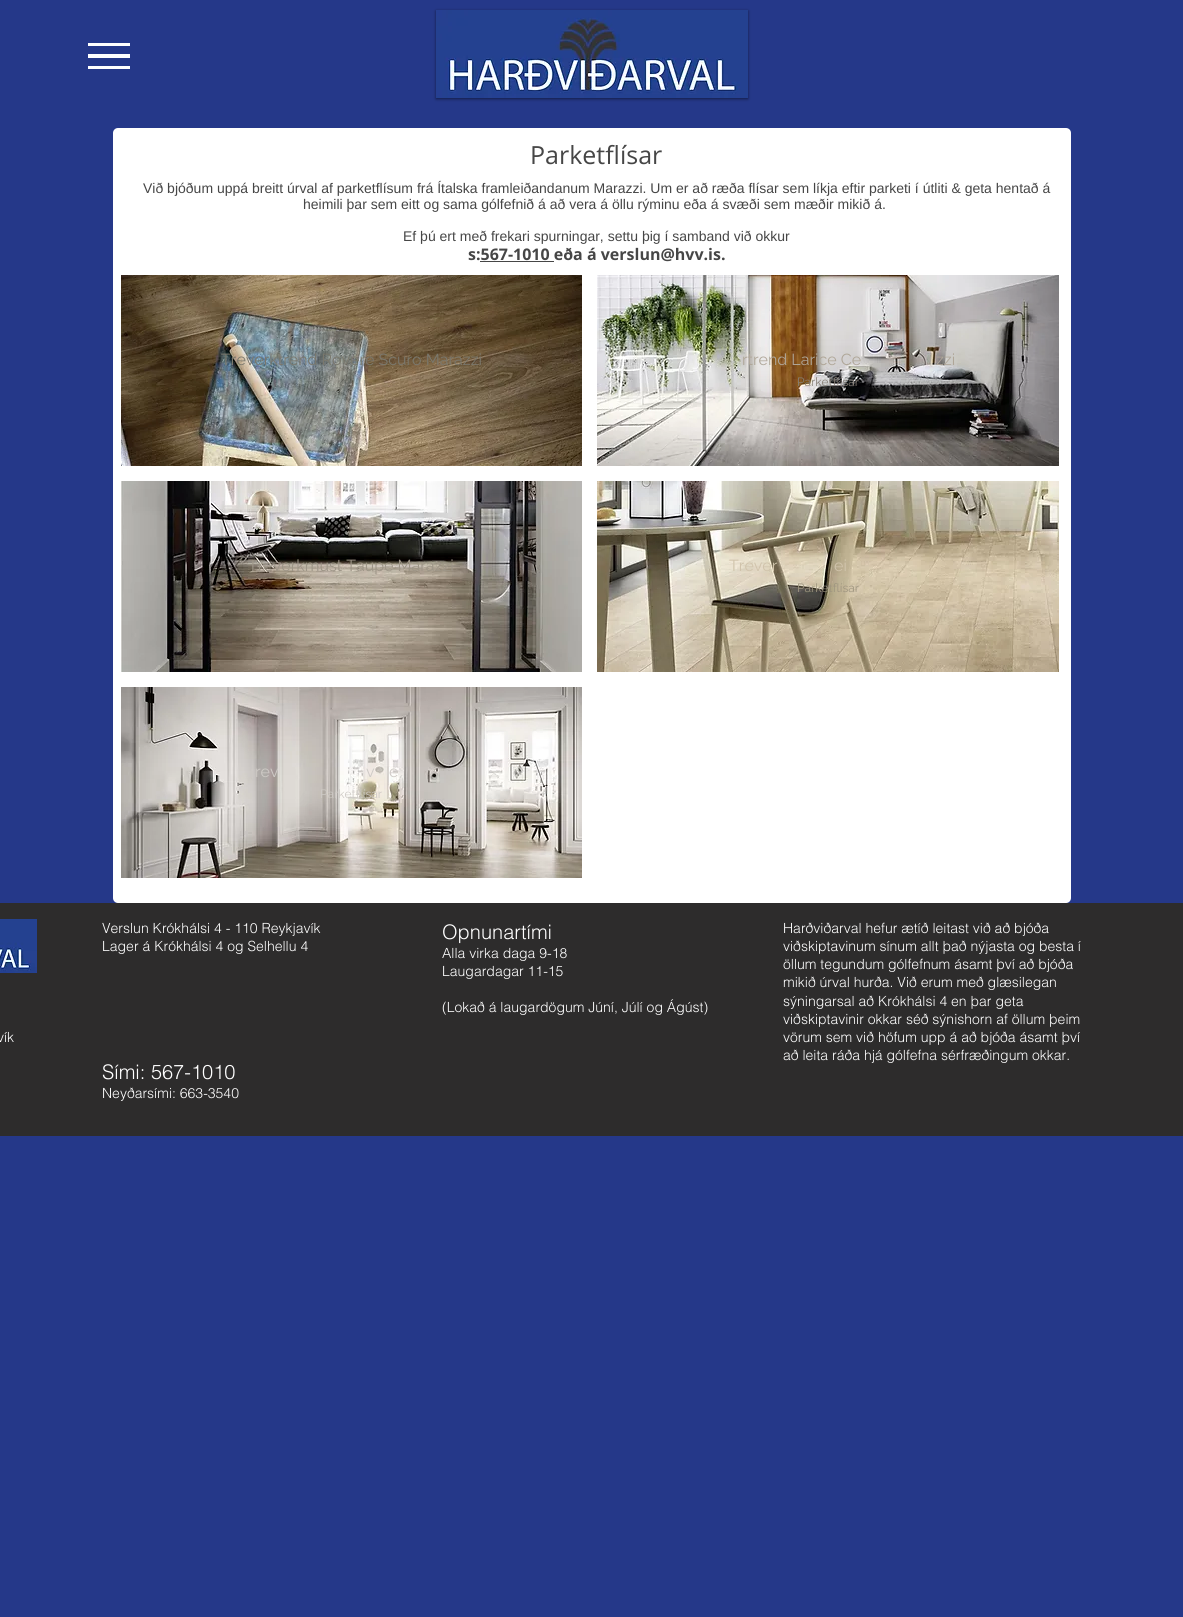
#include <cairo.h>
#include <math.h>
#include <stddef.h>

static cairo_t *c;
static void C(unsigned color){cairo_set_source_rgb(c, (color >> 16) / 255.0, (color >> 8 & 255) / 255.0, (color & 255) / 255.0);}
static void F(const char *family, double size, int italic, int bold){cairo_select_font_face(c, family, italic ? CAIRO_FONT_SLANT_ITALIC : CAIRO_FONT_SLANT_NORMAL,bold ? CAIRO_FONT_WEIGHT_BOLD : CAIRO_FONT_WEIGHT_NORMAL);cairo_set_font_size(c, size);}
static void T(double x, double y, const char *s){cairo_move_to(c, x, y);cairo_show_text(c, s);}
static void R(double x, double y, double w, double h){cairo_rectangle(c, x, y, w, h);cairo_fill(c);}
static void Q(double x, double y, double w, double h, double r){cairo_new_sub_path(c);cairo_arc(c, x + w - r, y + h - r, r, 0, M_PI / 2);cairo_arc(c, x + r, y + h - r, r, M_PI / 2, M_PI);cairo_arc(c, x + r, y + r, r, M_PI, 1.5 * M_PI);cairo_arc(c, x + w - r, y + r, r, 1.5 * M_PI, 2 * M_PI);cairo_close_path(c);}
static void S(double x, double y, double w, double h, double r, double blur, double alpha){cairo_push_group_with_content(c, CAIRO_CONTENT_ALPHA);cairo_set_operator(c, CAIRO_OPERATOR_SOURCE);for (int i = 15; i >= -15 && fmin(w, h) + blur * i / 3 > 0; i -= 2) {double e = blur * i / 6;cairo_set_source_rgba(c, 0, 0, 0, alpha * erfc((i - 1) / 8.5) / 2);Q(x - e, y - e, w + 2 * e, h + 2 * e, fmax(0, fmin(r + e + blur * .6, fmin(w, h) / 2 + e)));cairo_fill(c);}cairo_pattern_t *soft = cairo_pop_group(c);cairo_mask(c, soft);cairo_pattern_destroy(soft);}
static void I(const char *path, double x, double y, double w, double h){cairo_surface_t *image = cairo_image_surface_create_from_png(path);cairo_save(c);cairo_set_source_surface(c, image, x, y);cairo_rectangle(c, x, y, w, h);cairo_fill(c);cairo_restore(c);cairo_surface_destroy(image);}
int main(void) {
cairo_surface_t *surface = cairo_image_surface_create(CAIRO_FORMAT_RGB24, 1183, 1617);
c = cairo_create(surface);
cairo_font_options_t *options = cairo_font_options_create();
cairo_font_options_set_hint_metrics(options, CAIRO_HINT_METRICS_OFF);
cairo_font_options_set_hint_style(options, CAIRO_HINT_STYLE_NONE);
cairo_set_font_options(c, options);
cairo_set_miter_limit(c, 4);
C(0x253889);
cairo_paint(c);
C(0xffffff);
R(88,66,42,3);
R(88,43,42,3);
R(88,54,42,4);
C(0x000000);
S(436,11,312,88,0,1.5,.5);
I("1.png",436,10,312,88);
C(0xffffff);
Q(113,128,958,775,5);
cairo_fill(c);
F("Open Sans",25,0,0);
C(0x464646);
T(530,164,"Parketflísar");
F("Liberation Sans",14,0,0);
T(143,193,"Við bjóðum uppá breitt úrval af parketflísum frá Ítalska framleiðandanum Marazzi. Um er að ræða flísar sem líkja eftir parketi í útliti & geta hentað á");
T(303,209,"heimili þar sem eitt og sama gólfefnið á að vera á öllu rýminu eða á svæði sem mæðir mikið á.");
T(403,241,"Ef þú ert með frekari spurningar, settu þig í samband við okkur");
F("Open Sans",16,0,1);
T(468,260,"s:567-1010 eða á verslun@hvv.is.");
R(480,261,74,1);
I("2.png",121,275,461,191);
F("Raleway",16,0,0);
C(0x7a786d);
T(221,365,"Treverktrend Rovere Scuro Marazzi");
F("Raleway",12,0,0);
C(0x8f8c80);
T(363,386,"í");
I("3.png",597,275,462,191);
F("Raleway",16,0,0);
C(0xafa698);
T(742,365,"rtrend Larice Ce");
T(936,365,"zzi");
F("Raleway",12,0,0);
C(0x877f76);
T(797,386,"Parketflísar");
I("4.png",121,481,461,191);
F("Raleway",16,0,0);
C(0x9d9587);
T(248,571,"Treverkmust Taupe Marazzi");
I("5.png",597,481,462,191);
C(0xd0c3ab);
T(729,571,"Trever");
T(834,571,"ei");
F("Raleway",12,0,0);
C(0x9e957f);
T(797,592,"Parketflísar");
I("6.png",121,687,461,191);
F("Raleway",16,0,0);
C(0xcecac6);
T(255,777,"rev");
T(366,777,"v");
T(389,777,"e");
F("Raleway",12,0,0);
T(320,798,"Parketflísar");
C(0x2d2c2c);
R(0,903,1183,233);
I("7.png",0,919,37,54);
F("helvetica Light",14,0,0);
C(0xffffff);
T(102,933,"Verslun Krókhálsi 4 - 110 Reykjavík");
T(102,951,"Lager á Krókhálsi 4 og Selhellu 4");
F("helvetica Light",20,0,0);
T(442,939,"Opnunartími");
F("helvetica Light",14,0,0);
T(442,958,"Alla virka daga 9-18");
T(442,976,"Laugardagar 11-15");
T(442,1012,"(Lokað á laugardögum Júní, Júlí og Ágúst)");
T(783,933,"Harðviðarval hefur ætíð leitast við að bjóða");
T(783,951,"viðskiptavinum sínum allt það nýjasta og besta í");
T(783,969,"öllum tegundum gólfefnum ásamt því að bjóða");
T(783,987,"mikið úrval hurða. Við erum með glæsilegan");
T(783,1006,"sýningarsal að Krókhálsi 4 en þar geta");
T(783,1024,"viðskiptavinir okkar séð sýnishorn af öllum þeim");
T(783,1042,"vörum sem við höfum upp á að bjóða ásamt því");
T(783,1060,"að leita ráða hjá gólfefna sérfræðingum okkar.");
T(-3,1042,"vík");
F("helvetica Light",20,0,0);
T(102,1079,"Sími: 567-1010");
F("helvetica Light",14,0,0);
T(102,1098,"Neyðarsími: 663-3540");
cairo_surface_write_to_png(surface, "o.png");
cairo_font_options_destroy(options);
cairo_destroy(c);
cairo_surface_destroy(surface);
return 0;
}
